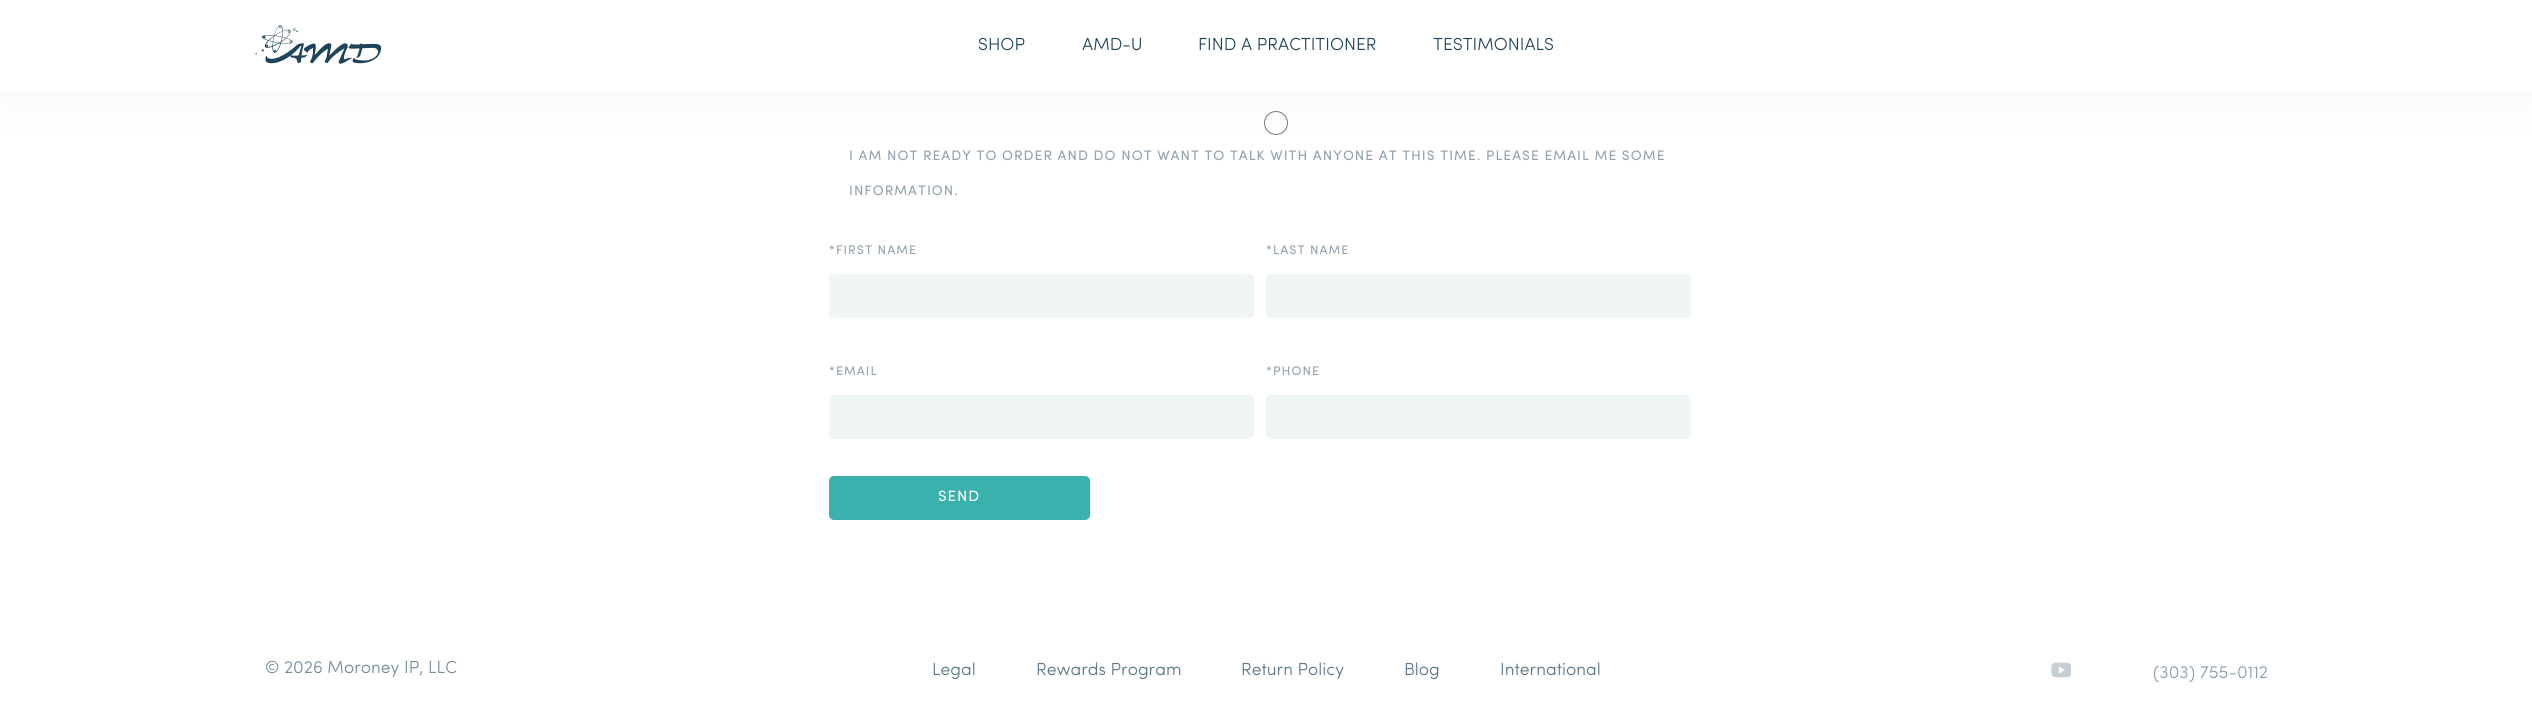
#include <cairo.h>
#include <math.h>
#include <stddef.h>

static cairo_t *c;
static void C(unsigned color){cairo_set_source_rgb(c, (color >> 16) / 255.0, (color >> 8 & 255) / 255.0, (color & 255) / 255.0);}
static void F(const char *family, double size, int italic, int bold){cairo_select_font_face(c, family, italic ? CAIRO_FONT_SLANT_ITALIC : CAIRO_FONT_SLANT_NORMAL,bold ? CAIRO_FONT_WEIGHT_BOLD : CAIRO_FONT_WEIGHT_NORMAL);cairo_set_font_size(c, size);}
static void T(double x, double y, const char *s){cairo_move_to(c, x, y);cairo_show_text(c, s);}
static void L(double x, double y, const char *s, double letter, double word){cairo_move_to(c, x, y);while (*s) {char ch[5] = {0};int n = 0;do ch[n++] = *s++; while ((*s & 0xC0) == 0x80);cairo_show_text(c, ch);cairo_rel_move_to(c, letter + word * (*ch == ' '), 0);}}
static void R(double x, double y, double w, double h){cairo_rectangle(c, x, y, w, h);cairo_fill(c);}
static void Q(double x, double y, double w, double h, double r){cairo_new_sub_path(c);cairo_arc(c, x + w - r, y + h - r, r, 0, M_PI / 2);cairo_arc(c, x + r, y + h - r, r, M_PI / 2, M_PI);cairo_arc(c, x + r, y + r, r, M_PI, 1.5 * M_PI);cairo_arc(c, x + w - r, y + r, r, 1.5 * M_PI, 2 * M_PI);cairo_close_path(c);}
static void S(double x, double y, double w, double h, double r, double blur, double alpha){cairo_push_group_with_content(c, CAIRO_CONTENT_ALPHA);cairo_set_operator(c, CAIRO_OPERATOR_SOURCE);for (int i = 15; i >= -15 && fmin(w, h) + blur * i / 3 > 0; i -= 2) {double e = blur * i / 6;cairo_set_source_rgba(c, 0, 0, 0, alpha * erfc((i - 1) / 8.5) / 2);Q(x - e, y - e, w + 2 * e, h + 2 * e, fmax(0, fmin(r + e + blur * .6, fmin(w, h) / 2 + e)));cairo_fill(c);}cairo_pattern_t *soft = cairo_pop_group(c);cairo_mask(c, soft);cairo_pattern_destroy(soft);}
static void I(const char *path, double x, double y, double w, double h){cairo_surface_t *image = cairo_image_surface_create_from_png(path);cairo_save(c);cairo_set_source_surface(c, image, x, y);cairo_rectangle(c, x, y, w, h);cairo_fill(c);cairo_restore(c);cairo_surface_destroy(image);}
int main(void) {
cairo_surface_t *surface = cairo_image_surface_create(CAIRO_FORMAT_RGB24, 2532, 706);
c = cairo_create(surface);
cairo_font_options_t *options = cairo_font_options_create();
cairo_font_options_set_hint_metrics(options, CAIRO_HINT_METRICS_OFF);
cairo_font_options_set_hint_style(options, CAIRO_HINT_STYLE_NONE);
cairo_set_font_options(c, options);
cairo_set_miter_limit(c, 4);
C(0xffffff);
cairo_paint(c);
cairo_arc(c,1276,123,11.5,0,2 * M_PI);
C(0x767676);
cairo_set_line_width(c,1);
cairo_stroke(c);
C(0x2f3e3e);
S(0,3,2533,91,0,25,.06);
C(0xffffff);
R(0,0,2532,91);
I("1.png",255,25,127,39);
F("Sofia Light",17.5,0,0);
C(0x1e4459);
T(978,50,"SHOP");
T(1082,50,"AMD-U");
T(1198,50,"FIND A PRACTITIONER");
T(1433,50,"TESTIMONIALS");
F("Sofia",13.75,0,0);
C(0x90a2ac);
L(849,160,"I AM NOT READY TO ORDER AND DO NOT WANT TO TALK WITH ANYONE AT THIS TIME. PLEASE EMAIL ME SOME",1.05,0);
L(849,195,"INFORMATION.",1.05,0);
F("Sofia",12.5,0,0);
L(829,254,"*FIRST NAME",1.05,0);
C(0xeff4f4);
Q(829,274,425,44,5);
cairo_fill(c);
C(0x90a2ac);
L(1266,254,"*LAST NAME",1.05,0);
C(0xeff4f4);
Q(1266,274,425,44,5);
cairo_fill(c);
C(0x90a2ac);
L(829,375,"*EMAIL",1.05,0);
C(0xeff4f4);
Q(829,395,425,44,5);
cairo_fill(c);
C(0x90a2ac);
L(1266,375,"*PHONE",1.05,0);
C(0xeff4f4);
Q(1266,395,425,44,5);
cairo_fill(c);
C(0x3bb1ad);
Q(829,476,261,44,5);
cairo_fill(c);
F("Sofia",15,0,0);
C(0xffffff);
L(938,501,"SEND",1,0);
F("Sofia Light",17.5,0,0);
C(0x748b98);
T(265,673,"© 2026 Moroney IP, LLC");
C(0x5d7887);
T(932,675,"Legal");
T(1036,675,"Rewards Program");
T(1241,675,"Return Policy");
T(1404,675,"Blog");
T(1500,675,"International");
I("2.png",2051,662,20,16);
C(0x8a9ea9);
T(2153,678,"(303) 755-0112");
cairo_surface_write_to_png(surface, "o.png");
cairo_font_options_destroy(options);
cairo_destroy(c);
cairo_surface_destroy(surface);
return 0;
}
